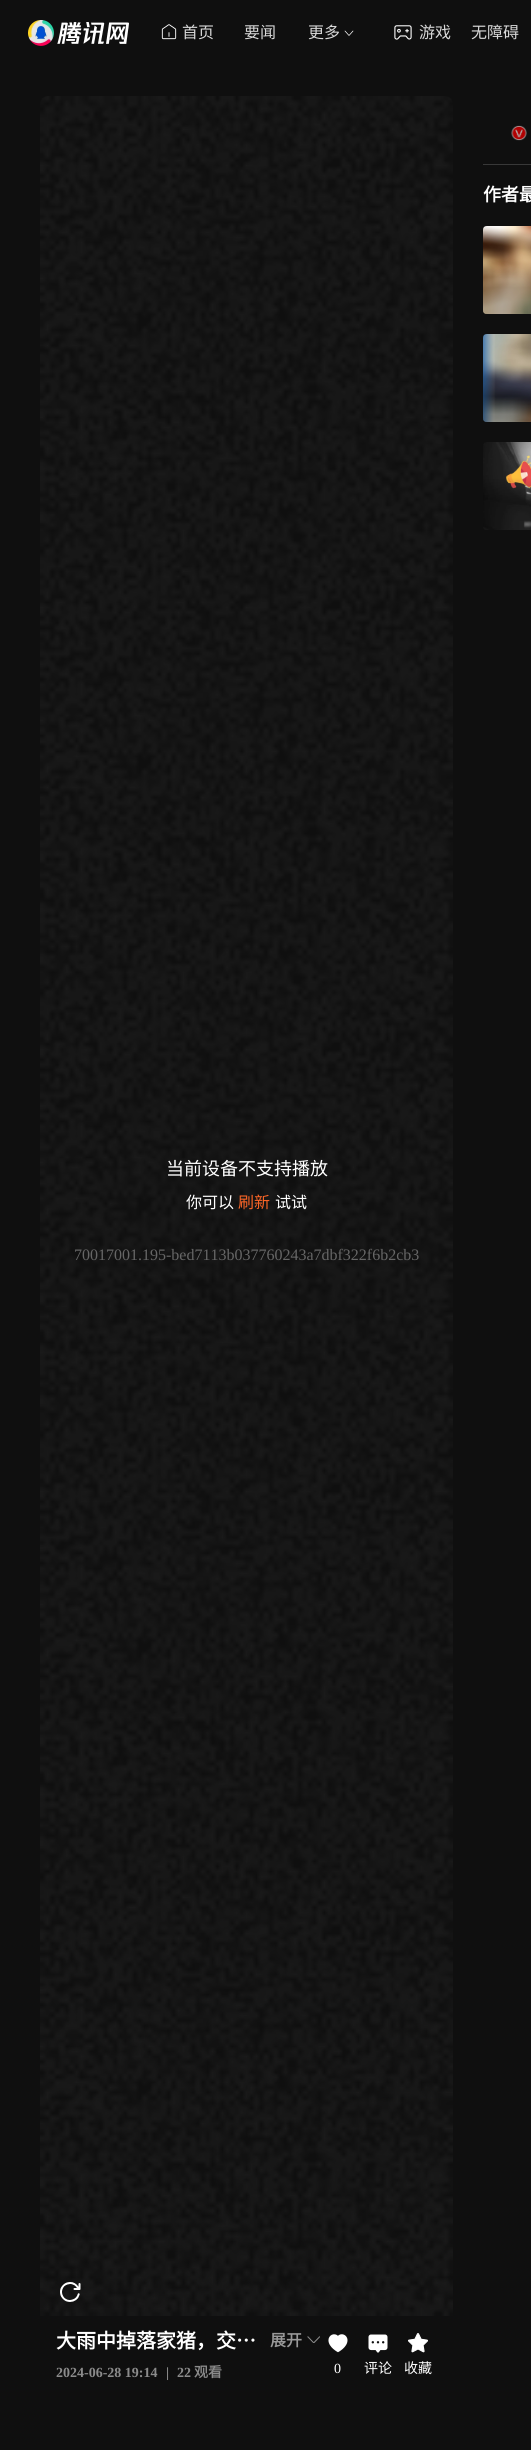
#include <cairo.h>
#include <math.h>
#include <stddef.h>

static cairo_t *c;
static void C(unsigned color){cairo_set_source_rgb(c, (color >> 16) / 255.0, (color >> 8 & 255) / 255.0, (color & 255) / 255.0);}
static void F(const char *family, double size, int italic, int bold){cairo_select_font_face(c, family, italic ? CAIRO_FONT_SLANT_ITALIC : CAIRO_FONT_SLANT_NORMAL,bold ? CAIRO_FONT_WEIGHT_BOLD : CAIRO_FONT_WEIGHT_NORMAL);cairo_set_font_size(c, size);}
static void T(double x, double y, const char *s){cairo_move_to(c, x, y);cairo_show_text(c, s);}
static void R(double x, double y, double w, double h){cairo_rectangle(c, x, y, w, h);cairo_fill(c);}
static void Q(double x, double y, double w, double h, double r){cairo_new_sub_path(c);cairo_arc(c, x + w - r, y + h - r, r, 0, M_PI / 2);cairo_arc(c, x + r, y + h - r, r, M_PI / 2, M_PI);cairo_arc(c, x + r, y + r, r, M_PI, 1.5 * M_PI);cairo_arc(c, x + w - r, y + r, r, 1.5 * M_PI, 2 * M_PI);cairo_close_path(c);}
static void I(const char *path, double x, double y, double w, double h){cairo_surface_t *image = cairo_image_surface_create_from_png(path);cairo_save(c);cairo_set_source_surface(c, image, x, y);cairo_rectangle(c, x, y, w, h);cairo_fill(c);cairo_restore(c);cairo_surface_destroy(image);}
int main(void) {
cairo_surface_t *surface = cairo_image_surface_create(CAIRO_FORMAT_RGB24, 531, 2450);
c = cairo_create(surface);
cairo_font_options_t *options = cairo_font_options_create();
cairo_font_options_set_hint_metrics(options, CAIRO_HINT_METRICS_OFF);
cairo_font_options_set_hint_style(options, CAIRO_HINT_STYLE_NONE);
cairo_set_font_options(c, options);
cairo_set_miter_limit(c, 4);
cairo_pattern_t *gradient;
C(0x0f0f0f);
cairo_paint(c);
I("1.png",28,20,101,26);
I("2.png",161,24,16,16);
F("Noto Sans CJK SC",16,0,0);
C(0xd9d9d9);
T(182,38,"首页");
T(244,38,"要闻");
T(308,38,"更多");
cairo_new_path(c);
cairo_move_to(c,353,31);
cairo_line_to(c,349,35.5);
cairo_line_to(c,345,31);
C(0xffffff);
cairo_set_line_width(c,.7);
cairo_set_line_cap(c,CAIRO_LINE_CAP_ROUND);
cairo_set_line_join(c,CAIRO_LINE_JOIN_ROUND);
cairo_stroke(c);
I("3.png",394,25,18,15);
C(0xd9d9d9);
T(419,38,"游戏");
T(471,38,"无障碍");
I("4.png",511,125,16,16);
C(0x383838);
R(483,164,48,1);
F("Noto Sans CJK SC",18,0,1);
C(0xffffff);
T(483,201,"作者最");
I("5.png",483,226,48,88);
gradient = cairo_pattern_create_linear(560,314,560,226);
cairo_pattern_add_color_stop_rgba(gradient,.3,0,0,0,.3);
cairo_pattern_add_color_stop_rgba(gradient,.6,0,0,0,0);
cairo_set_source(c,gradient);
cairo_pattern_destroy(gradient);
Q(483,226,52,88,4);
cairo_fill(c);
I("6.png",483,334,48,88);
gradient = cairo_pattern_create_linear(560,422,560,334);
cairo_pattern_add_color_stop_rgba(gradient,.3,0,0,0,.3);
cairo_pattern_add_color_stop_rgba(gradient,.6,0,0,0,0);
cairo_set_source(c,gradient);
cairo_pattern_destroy(gradient);
Q(483,334,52,88,4);
cairo_fill(c);
I("7.png",483,442,48,88);
gradient = cairo_pattern_create_linear(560,530,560,442);
cairo_pattern_add_color_stop_rgba(gradient,.3,0,0,0,.3);
cairo_pattern_add_color_stop_rgba(gradient,.6,0,0,0,0);
cairo_set_source(c,gradient);
cairo_pattern_destroy(gradient);
Q(483,442,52,88,4);
cairo_fill(c);
I("8.png",40,96,413,2220);
F("Noto Sans CJK SC",18,0,0);
C(0xffffff);
T(166,1175,"当前设备不支持播放");
F("Noto Sans CJK SC",16,0,0);
T(186,1208,"你可以");
C(0xfc6526);
T(238,1208,"刷新");
C(0xffffff);
T(275,1208,"试试");
F("Liberation Serif",16,0,0);
C(0x666666);
T(74,1260,"70017001.195-bed7113b037760243a7dbf322f6b2cb3");
F("Noto Sans CJK SC",20,0,1);
C(0xffffff);
T(56,2348,"大雨中掉落家猪，交…");
F("Noto Sans CJK SC",16,0,1);
C(0x999999);
T(270,2346,"展开");
I("9.png",307,2336,13,7);
F("Liberation Serif",14,0,1);
C(0x8b8b8b);
T(56,2377,"2024-06-28 19:14");
T(166,2377,"|");
T(177,2377,"22");
F("Noto Sans CJK SC",14,0,1);
T(194,2377,"观看");
I("10.png",328,2334,20,19);
F("Liberation Serif",14,0,0);
C(0xffffff);
T(334,2373,"0");
I("11.png",368,2334,20,19);
F("Noto Sans CJK SC",14,0,0);
T(364,2373,"评论");
I("12.png",408,2333,20,20);
T(404,2373,"收藏");
cairo_surface_write_to_png(surface, "o.png");
cairo_font_options_destroy(options);
cairo_destroy(c);
cairo_surface_destroy(surface);
return 0;
}
